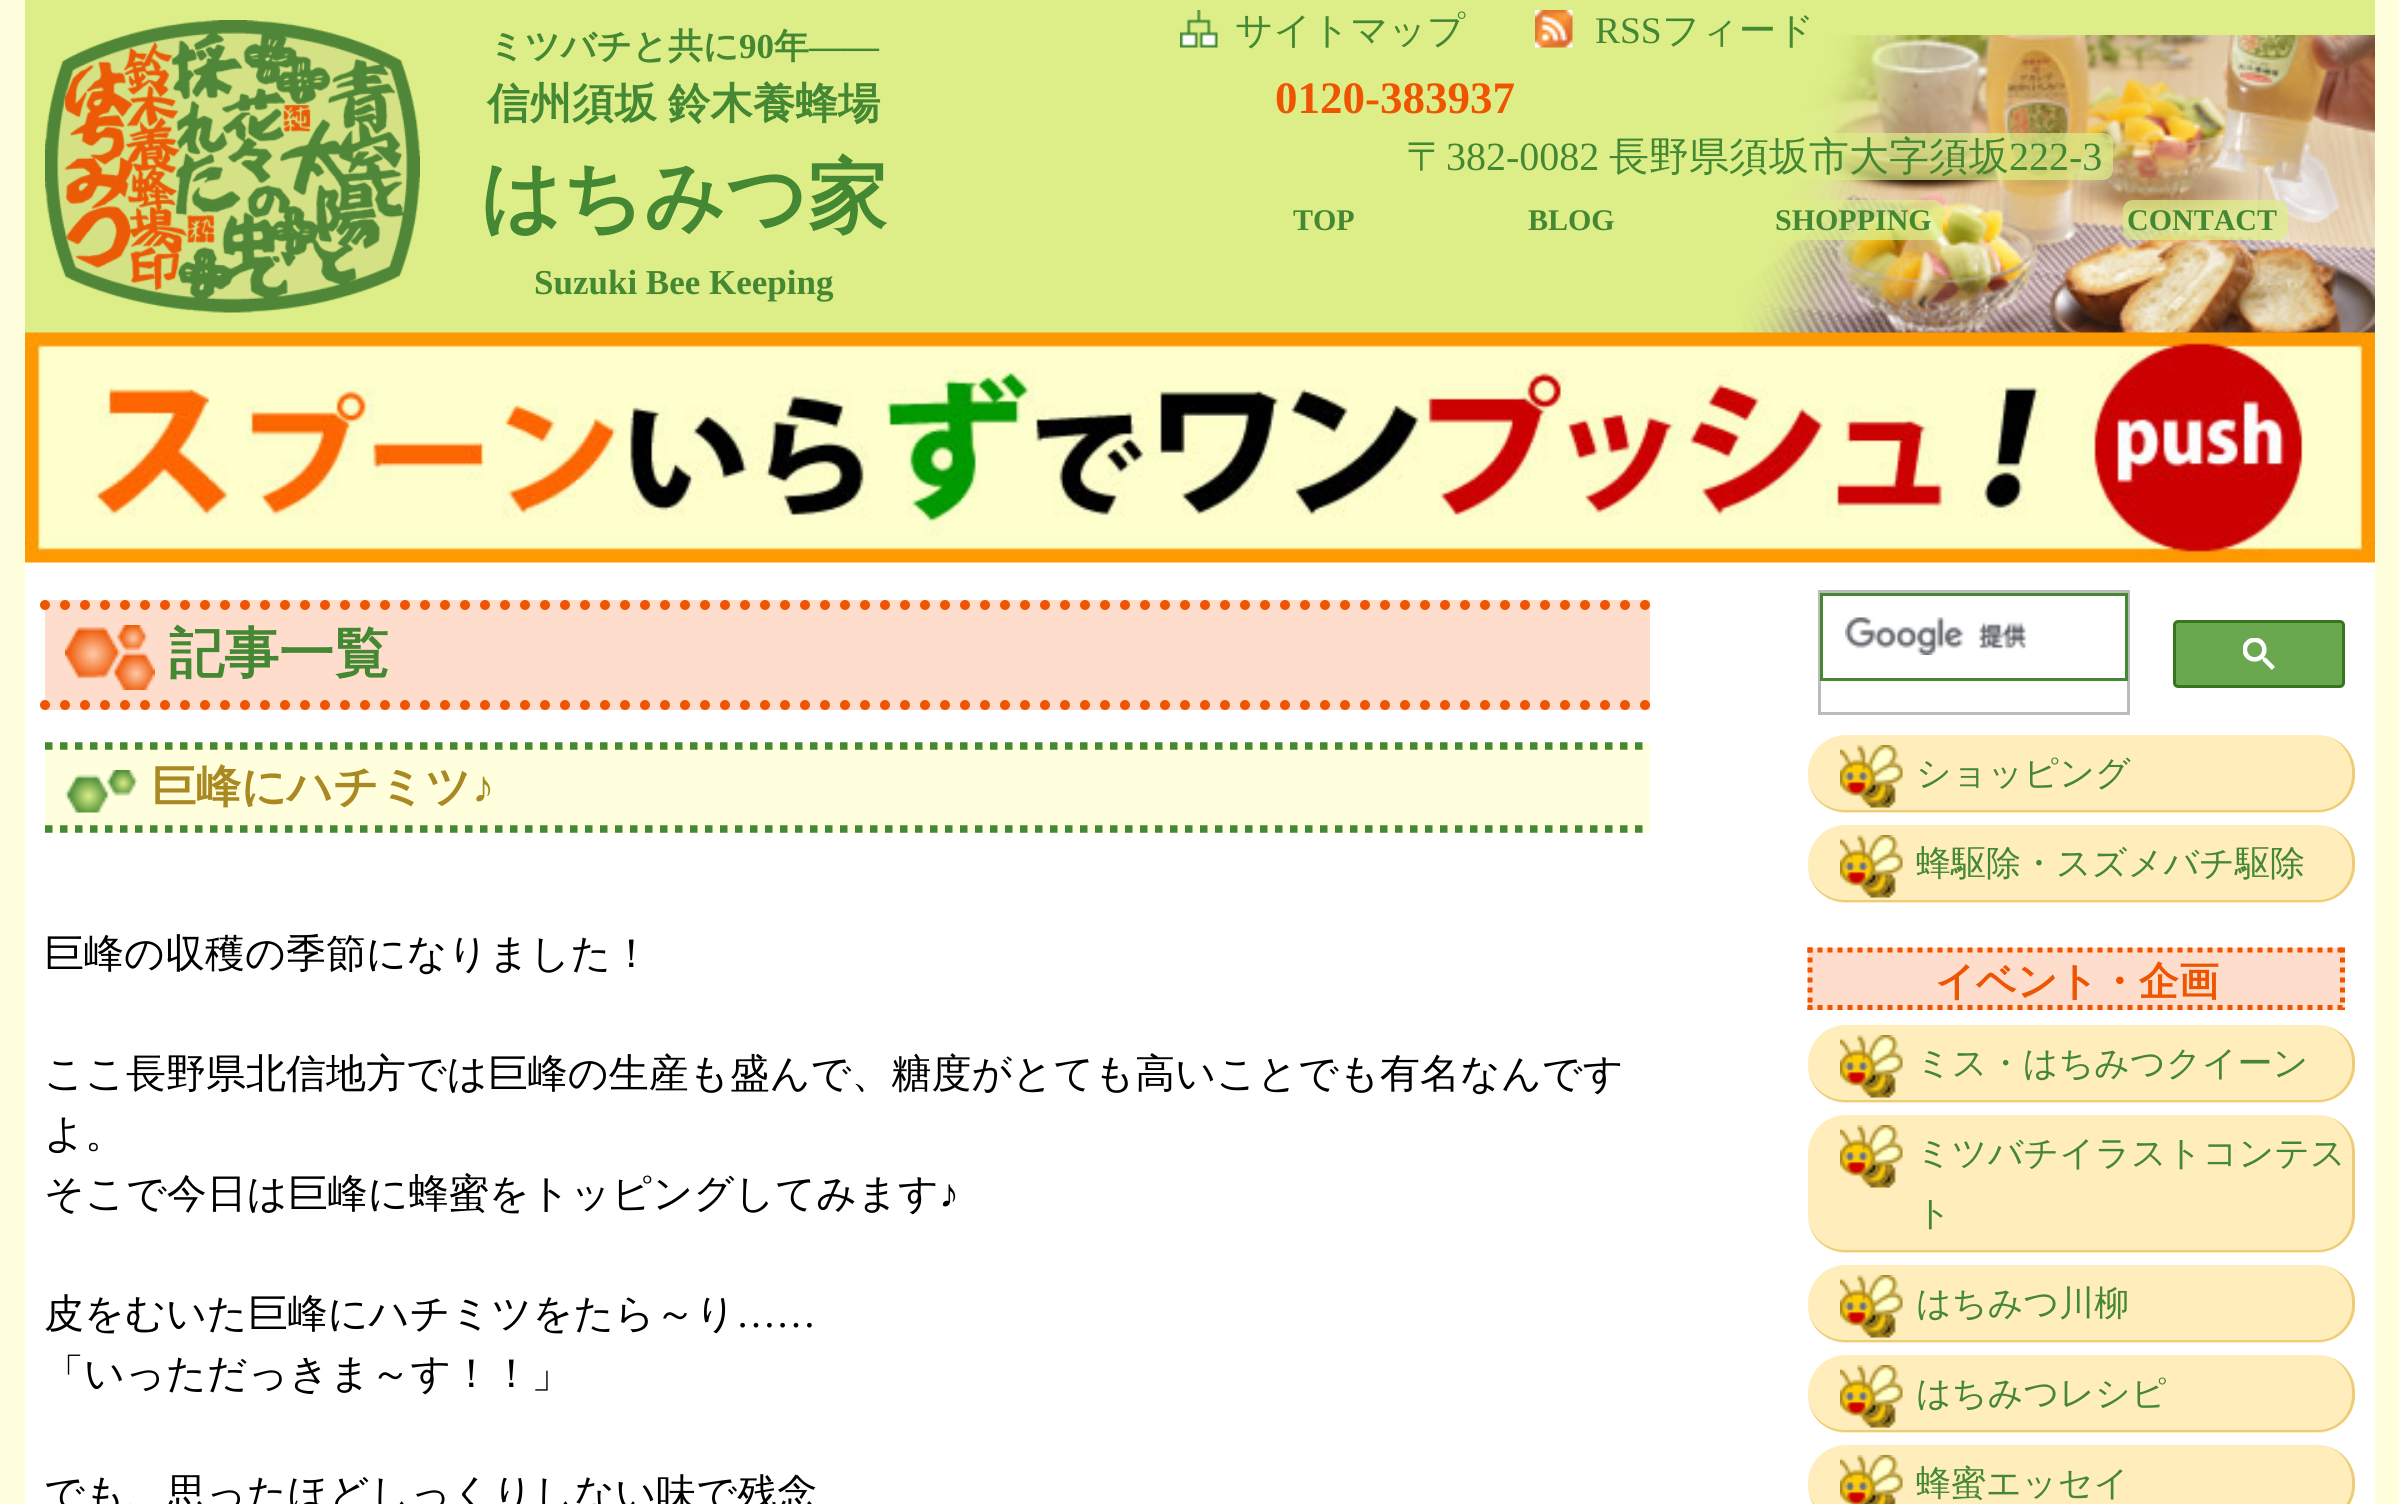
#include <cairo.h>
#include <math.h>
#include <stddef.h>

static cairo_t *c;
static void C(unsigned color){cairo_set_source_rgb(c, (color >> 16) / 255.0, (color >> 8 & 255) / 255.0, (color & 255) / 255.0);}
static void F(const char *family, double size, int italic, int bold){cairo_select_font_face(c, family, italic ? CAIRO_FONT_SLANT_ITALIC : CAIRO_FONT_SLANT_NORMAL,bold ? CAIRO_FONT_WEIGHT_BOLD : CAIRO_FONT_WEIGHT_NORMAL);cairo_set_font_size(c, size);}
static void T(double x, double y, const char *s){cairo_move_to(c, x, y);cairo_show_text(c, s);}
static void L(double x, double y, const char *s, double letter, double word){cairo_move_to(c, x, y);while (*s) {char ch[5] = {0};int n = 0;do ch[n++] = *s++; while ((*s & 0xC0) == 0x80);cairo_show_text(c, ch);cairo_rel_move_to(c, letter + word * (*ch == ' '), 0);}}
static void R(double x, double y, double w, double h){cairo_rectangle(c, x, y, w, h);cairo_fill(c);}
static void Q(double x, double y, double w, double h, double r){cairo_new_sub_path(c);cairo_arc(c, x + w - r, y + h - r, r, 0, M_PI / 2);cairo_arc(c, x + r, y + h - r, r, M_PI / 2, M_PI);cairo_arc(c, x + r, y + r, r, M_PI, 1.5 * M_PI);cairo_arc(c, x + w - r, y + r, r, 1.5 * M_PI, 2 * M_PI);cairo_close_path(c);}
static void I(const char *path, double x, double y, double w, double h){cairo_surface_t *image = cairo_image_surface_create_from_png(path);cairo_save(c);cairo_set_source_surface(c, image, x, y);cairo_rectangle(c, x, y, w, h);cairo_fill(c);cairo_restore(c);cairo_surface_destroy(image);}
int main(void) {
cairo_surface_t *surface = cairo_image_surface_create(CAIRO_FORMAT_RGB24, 2399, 1504);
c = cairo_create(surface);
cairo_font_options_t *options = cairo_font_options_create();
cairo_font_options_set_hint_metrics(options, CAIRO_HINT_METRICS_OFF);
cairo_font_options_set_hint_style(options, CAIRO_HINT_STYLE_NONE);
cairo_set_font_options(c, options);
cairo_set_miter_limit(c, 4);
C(0xffffdd);
cairo_paint(c);
C(0xffffff);
R(25,562,2350,942);
C(0xddee88);
R(25,0,2350,333);
I("1.png",1741,35,634,298);
I("2.png",45,20,375,293);
F("WenQuanYi Zen Hei",35,0,1);
C(0x448833);
T(489,58,"ミツバチと共に");
F("Liberation Serif",35,0,1);
T(739,58,"90");
F("WenQuanYi Zen Hei",35,0,1);
T(774,58,"年");
F("Liberation Serif",35,0,1);
T(809,58,"――");
F("WenQuanYi Zen Hei",42.5,0,1);
L(487,118,"信州須坂 鈴木養蜂場",0,-2);
F("WenQuanYi Zen Hei",80,0,1);
T(480,224,"はちみつ家");
F("Liberation Serif",35,0,1);
T(534,294,"Suzuki Bee Keeping");
I("3.png",1180,10,38,38);
F("WenQuanYi Zen Hei Medium",37.5,0,0);
T(1235,43,"サイトマップ");
I("4.png",1535,10,38,38);
F("Liberation Serif",37.5,0,0);
T(1595,43,"RSS");
F("WenQuanYi Zen Hei Medium",37.5,0,0);
T(1662,43,"フィード");
F("Liberation Serif",45,0,1);
C(0xee5500);
T(1275,113,"0120-383937");
cairo_set_source_rgba(c,0.867,0.933,0.533,0.7);
Q(1400,133,713,47,10);
cairo_fill(c);
F("WenQuanYi Zen Hei Medium",40,0,0);
C(0x448833);
T(1406,170,"〒");
F("Liberation Serif",40,0,0);
T(1446,170,"382-0082");
F("WenQuanYi Zen Hei Medium",40,0,0);
T(1609,170,"長野県須坂市大字須坂");
F("Liberation Serif",40,0,0);
T(2009,170,"222-3");
F("Liberation Serif",30,0,1);
T(1293,230,"TOP");
T(1528,230,"BLOG");
cairo_set_source_rgba(c,0.867,0.933,0.533,0.7);
Q(1770,200,173,40,10);
cairo_fill(c);
C(0x448833);
T(1775,230,"SHOPPING");
cairo_set_source_rgba(c,0.867,0.933,0.533,0.7);
Q(2123,200,165,40,10);
cairo_fill(c);
C(0x448833);
T(2127,230,"CONTACT");
I("5.png",25,332,2350,231);
C(0xffddcc);
R(45,600,1605,110);
I("6.png",65,625,90,65);
cairo_new_path(c);
cairo_move_to(c,45,605);
cairo_line_to(c,1650,605);
C(0xee5500);
cairo_set_line_width(c,10);
cairo_set_line_cap(c,CAIRO_LINE_CAP_ROUND);
cairo_set_dash(c,(double[]){0,20},2,0);
cairo_stroke(c);
cairo_new_path(c);
cairo_move_to(c,45,705);
cairo_line_to(c,1650,705);
cairo_stroke(c);
F("WenQuanYi Zen Hei",55,0,1);
C(0x448833);
T(169,672,"記事一覧");
C(0xffffdd);
R(45,743,1605,90);
I("7.png",65,770,73,43);
cairo_new_path(c);
cairo_move_to(c,45,746);
cairo_line_to(c,1650,746);
C(0x448833);
cairo_set_line_width(c,7.5);
cairo_set_line_cap(c,CAIRO_LINE_CAP_BUTT);
cairo_set_dash(c,(double[]){7.5,7.5},2,0);
cairo_stroke(c);
cairo_new_path(c);
cairo_move_to(c,45,829);
cairo_line_to(c,1650,829);
cairo_stroke(c);
F("WenQuanYi Zen Hei",45,0,1);
C(0xaa8822);
T(151,802,"巨峰にハチミツ");
F("Liberation Serif",45,0,1);
T(472,802,"♪");
F("WenQuanYi Zen Hei Medium",40,0,0);
C(0x000000);
T(44,967,"巨峰の収穫の季節になりました！");
T(44,1087,"ここ長野県北信地方では巨峰の生産も盛んで、糖度がとても高いことでも有名なんです");
T(44,1147,"よ。");
T(44,1207,"そこで今日は巨峰に蜂蜜をトッピングしてみます");
F("Liberation Serif",40,0,0);
T(939,1207,"♪");
F("WenQuanYi Zen Hei Medium",40,0,0);
T(44,1327,"皮をむいた巨峰にハチミツをたら～り");
F("Liberation Serif",40,0,0);
T(736,1327,"……");
F("WenQuanYi Zen Hei Medium",40,0,0);
T(44,1387,"「いっただっきま～す！！」");
T(44,1507,"でも、思ったほどしっくりしない味で残念");
cairo_rectangle(c,1819.5,591.5,309,122);
C(0xbbbbbb);
cairo_set_line_width(c,3);
cairo_set_dash(c,NULL,0,0);
cairo_stroke(c);
C(0x448833);
R(1820,593,308,3);
R(2125,593,3,87);
R(1820,678,308,3);
R(1820,593,3,87);
I("8.png",1845,617,182,38);
C(0x6aa84f);
Q(2174.5,621.5,169,65,3.5);
cairo_fill_preserve(c);
C(0x38761d);
cairo_stroke(c);
I("9.png",2243,638,32,32);
C(0xffeebb);
Q(1808,735,547,78,38);
cairo_fill(c);
I("10.png",1840,745,63,63);
C(0xeecc77);
cairo_set_fill_rule(c,CAIRO_FILL_RULE_EVEN_ODD);
cairo_new_path(c);
cairo_move_to(c,1845,735);
cairo_line_to(c,2318,735);
cairo_curve_to(c,2338,735,2355,752,2355,772);
cairo_line_to(c,2355,775);
cairo_curve_to(c,2355,796,2338,812,2318,812);
cairo_line_to(c,1845,812);
cairo_curve_to(c,1824,812,1808,796,1808,775);
cairo_line_to(c,1808,772);
cairo_curve_to(c,1808,752,1824,735,1845,735);
cairo_close_path(c);
cairo_move_to(c,1845,735);
cairo_line_to(c,2318,735);
cairo_curve_to(c,2337,735,2352,752,2352,772);
cairo_line_to(c,2352,775);
cairo_curve_to(c,2352,794,2337,810,2318,810);
cairo_line_to(c,1845,810);
cairo_curve_to(c,1824,810,1808,794,1808,775);
cairo_line_to(c,1808,772);
cairo_curve_to(c,1808,752,1824,735,1845,735);
cairo_close_path(c);
cairo_fill(c);
F("WenQuanYi Zen Hei Medium",35,0,0);
C(0x448833);
T(1916,785,"ショッピング");
C(0xffeebb);
Q(1808,825,547,78,38);
cairo_fill(c);
I("10.png",1840,835,63,63);
C(0xeecc77);
cairo_new_path(c);
cairo_move_to(c,1845,825);
cairo_line_to(c,2318,825);
cairo_curve_to(c,2338,825,2355,842,2355,862);
cairo_line_to(c,2355,865);
cairo_curve_to(c,2355,886,2338,902,2318,902);
cairo_line_to(c,1845,902);
cairo_curve_to(c,1824,902,1808,886,1808,865);
cairo_line_to(c,1808,862);
cairo_curve_to(c,1808,842,1824,825,1845,825);
cairo_close_path(c);
cairo_move_to(c,1845,825);
cairo_line_to(c,2318,825);
cairo_curve_to(c,2337,825,2352,842,2352,862);
cairo_line_to(c,2352,865);
cairo_curve_to(c,2352,884,2337,900,2318,900);
cairo_line_to(c,1845,900);
cairo_curve_to(c,1824,900,1808,884,1808,865);
cairo_line_to(c,1808,862);
cairo_curve_to(c,1808,842,1824,825,1845,825);
cairo_close_path(c);
cairo_fill(c);
C(0x448833);
T(1916,875,"蜂駆除・スズメバチ駆除");
C(0xffddcc);
R(1808,948,537,62);
cairo_new_path(c);
cairo_move_to(c,1807.5,950);
cairo_line_to(c,2345,950);
C(0xee5500);
cairo_set_line_width(c,5);
cairo_set_dash(c,(double[]){5,5},2,0);
cairo_stroke(c);
cairo_new_path(c);
cairo_move_to(c,2342.5,947.5);
cairo_line_to(c,2342.5,1010);
cairo_stroke(c);
cairo_new_path(c);
cairo_move_to(c,1807.5,1007.5);
cairo_line_to(c,2345,1007.5);
cairo_stroke(c);
cairo_new_path(c);
cairo_move_to(c,1810,947.5);
cairo_line_to(c,1810,1010);
cairo_stroke(c);
F("WenQuanYi Zen Hei",40,0,1);
T(1935,995,"イベント・企画");
C(0xffeebb);
Q(1808,1025,547,78,38);
cairo_fill(c);
I("10.png",1840,1035,63,63);
C(0xeecc77);
cairo_new_path(c);
cairo_move_to(c,1845,1025);
cairo_line_to(c,2318,1025);
cairo_curve_to(c,2338,1025,2355,1042,2355,1062);
cairo_line_to(c,2355,1065);
cairo_curve_to(c,2355,1086,2338,1102,2318,1102);
cairo_line_to(c,1845,1102);
cairo_curve_to(c,1824,1102,1808,1086,1808,1065);
cairo_line_to(c,1808,1062);
cairo_curve_to(c,1808,1042,1824,1025,1845,1025);
cairo_close_path(c);
cairo_move_to(c,1845,1025);
cairo_line_to(c,2318,1025);
cairo_curve_to(c,2337,1025,2352,1042,2352,1062);
cairo_line_to(c,2352,1065);
cairo_curve_to(c,2352,1084,2337,1100,2318,1100);
cairo_line_to(c,1845,1100);
cairo_curve_to(c,1824,1100,1808,1084,1808,1065);
cairo_line_to(c,1808,1062);
cairo_curve_to(c,1808,1042,1824,1025,1845,1025);
cairo_close_path(c);
cairo_fill(c);
F("WenQuanYi Zen Hei Medium",35,0,0);
C(0x448833);
T(1916,1075,"ミス・はちみつクイーン");
C(0xffeebb);
Q(1808,1115,547,138,38);
cairo_fill(c);
I("11.png",1840,1125,63,63);
C(0xeecc77);
cairo_new_path(c);
cairo_move_to(c,1845,1115);
cairo_line_to(c,2318,1115);
cairo_curve_to(c,2338,1115,2355,1132,2355,1152);
cairo_line_to(c,2355,1215);
cairo_curve_to(c,2355,1236,2338,1252,2318,1252);
cairo_line_to(c,1845,1252);
cairo_curve_to(c,1824,1252,1808,1236,1808,1215);
cairo_line_to(c,1808,1152);
cairo_curve_to(c,1808,1132,1824,1115,1845,1115);
cairo_close_path(c);
cairo_move_to(c,1845,1115);
cairo_line_to(c,2318,1115);
cairo_curve_to(c,2337,1115,2352,1132,2352,1152);
cairo_line_to(c,2352,1215);
cairo_curve_to(c,2352,1234,2337,1250,2318,1250);
cairo_line_to(c,1845,1250);
cairo_curve_to(c,1824,1250,1808,1234,1808,1215);
cairo_line_to(c,1808,1152);
cairo_curve_to(c,1808,1132,1824,1115,1845,1115);
cairo_close_path(c);
cairo_fill(c);
C(0x448833);
T(1916,1165,"ミツバチイラストコンテス");
T(1916,1225,"ト");
C(0xffeebb);
Q(1808,1265,547,78,38);
cairo_fill(c);
I("10.png",1840,1275,63,63);
C(0xeecc77);
cairo_new_path(c);
cairo_move_to(c,1845,1265);
cairo_line_to(c,2318,1265);
cairo_curve_to(c,2338,1265,2355,1282,2355,1302);
cairo_line_to(c,2355,1305);
cairo_curve_to(c,2355,1326,2338,1342,2318,1342);
cairo_line_to(c,1845,1342);
cairo_curve_to(c,1824,1342,1808,1326,1808,1305);
cairo_line_to(c,1808,1302);
cairo_curve_to(c,1808,1282,1824,1265,1845,1265);
cairo_close_path(c);
cairo_move_to(c,1845,1265);
cairo_line_to(c,2318,1265);
cairo_curve_to(c,2337,1265,2352,1282,2352,1302);
cairo_line_to(c,2352,1305);
cairo_curve_to(c,2352,1324,2337,1340,2318,1340);
cairo_line_to(c,1845,1340);
cairo_curve_to(c,1824,1340,1808,1324,1808,1305);
cairo_line_to(c,1808,1302);
cairo_curve_to(c,1808,1282,1824,1265,1845,1265);
cairo_close_path(c);
cairo_fill(c);
C(0x448833);
T(1916,1315,"はちみつ川柳");
C(0xffeebb);
Q(1808,1355,547,78,38);
cairo_fill(c);
I("10.png",1840,1365,63,63);
C(0xeecc77);
cairo_new_path(c);
cairo_move_to(c,1845,1355);
cairo_line_to(c,2318,1355);
cairo_curve_to(c,2338,1355,2355,1372,2355,1392);
cairo_line_to(c,2355,1395);
cairo_curve_to(c,2355,1416,2338,1432,2318,1432);
cairo_line_to(c,1845,1432);
cairo_curve_to(c,1824,1432,1808,1416,1808,1395);
cairo_line_to(c,1808,1392);
cairo_curve_to(c,1808,1372,1824,1355,1845,1355);
cairo_close_path(c);
cairo_move_to(c,1845,1355);
cairo_line_to(c,2318,1355);
cairo_curve_to(c,2337,1355,2352,1372,2352,1392);
cairo_line_to(c,2352,1395);
cairo_curve_to(c,2352,1414,2337,1430,2318,1430);
cairo_line_to(c,1845,1430);
cairo_curve_to(c,1824,1430,1808,1414,1808,1395);
cairo_line_to(c,1808,1392);
cairo_curve_to(c,1808,1372,1824,1355,1845,1355);
cairo_close_path(c);
cairo_fill(c);
C(0x448833);
T(1916,1405,"はちみつレシピ");
C(0xffeebb);
Q(1808,1445,547,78,38);
cairo_fill(c);
I("12.png",1840,1455,63,49);
C(0xeecc77);
cairo_new_path(c);
cairo_move_to(c,1845,1445);
cairo_line_to(c,2318,1445);
cairo_curve_to(c,2338,1445,2355,1462,2355,1482);
cairo_line_to(c,2355,1485);
cairo_curve_to(c,2355,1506,2338,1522,2318,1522);
cairo_line_to(c,1845,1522);
cairo_curve_to(c,1824,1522,1808,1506,1808,1485);
cairo_line_to(c,1808,1482);
cairo_curve_to(c,1808,1462,1824,1445,1845,1445);
cairo_close_path(c);
cairo_move_to(c,1845,1445);
cairo_line_to(c,2318,1445);
cairo_curve_to(c,2337,1445,2352,1462,2352,1482);
cairo_line_to(c,2352,1485);
cairo_curve_to(c,2352,1504,2337,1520,2318,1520);
cairo_line_to(c,1845,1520);
cairo_curve_to(c,1824,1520,1808,1504,1808,1485);
cairo_line_to(c,1808,1482);
cairo_curve_to(c,1808,1462,1824,1445,1845,1445);
cairo_close_path(c);
cairo_fill(c);
C(0x448833);
T(1916,1495,"蜂蜜エッセイ");
cairo_surface_write_to_png(surface, "o.png");
cairo_font_options_destroy(options);
cairo_destroy(c);
cairo_surface_destroy(surface);
return 0;
}
